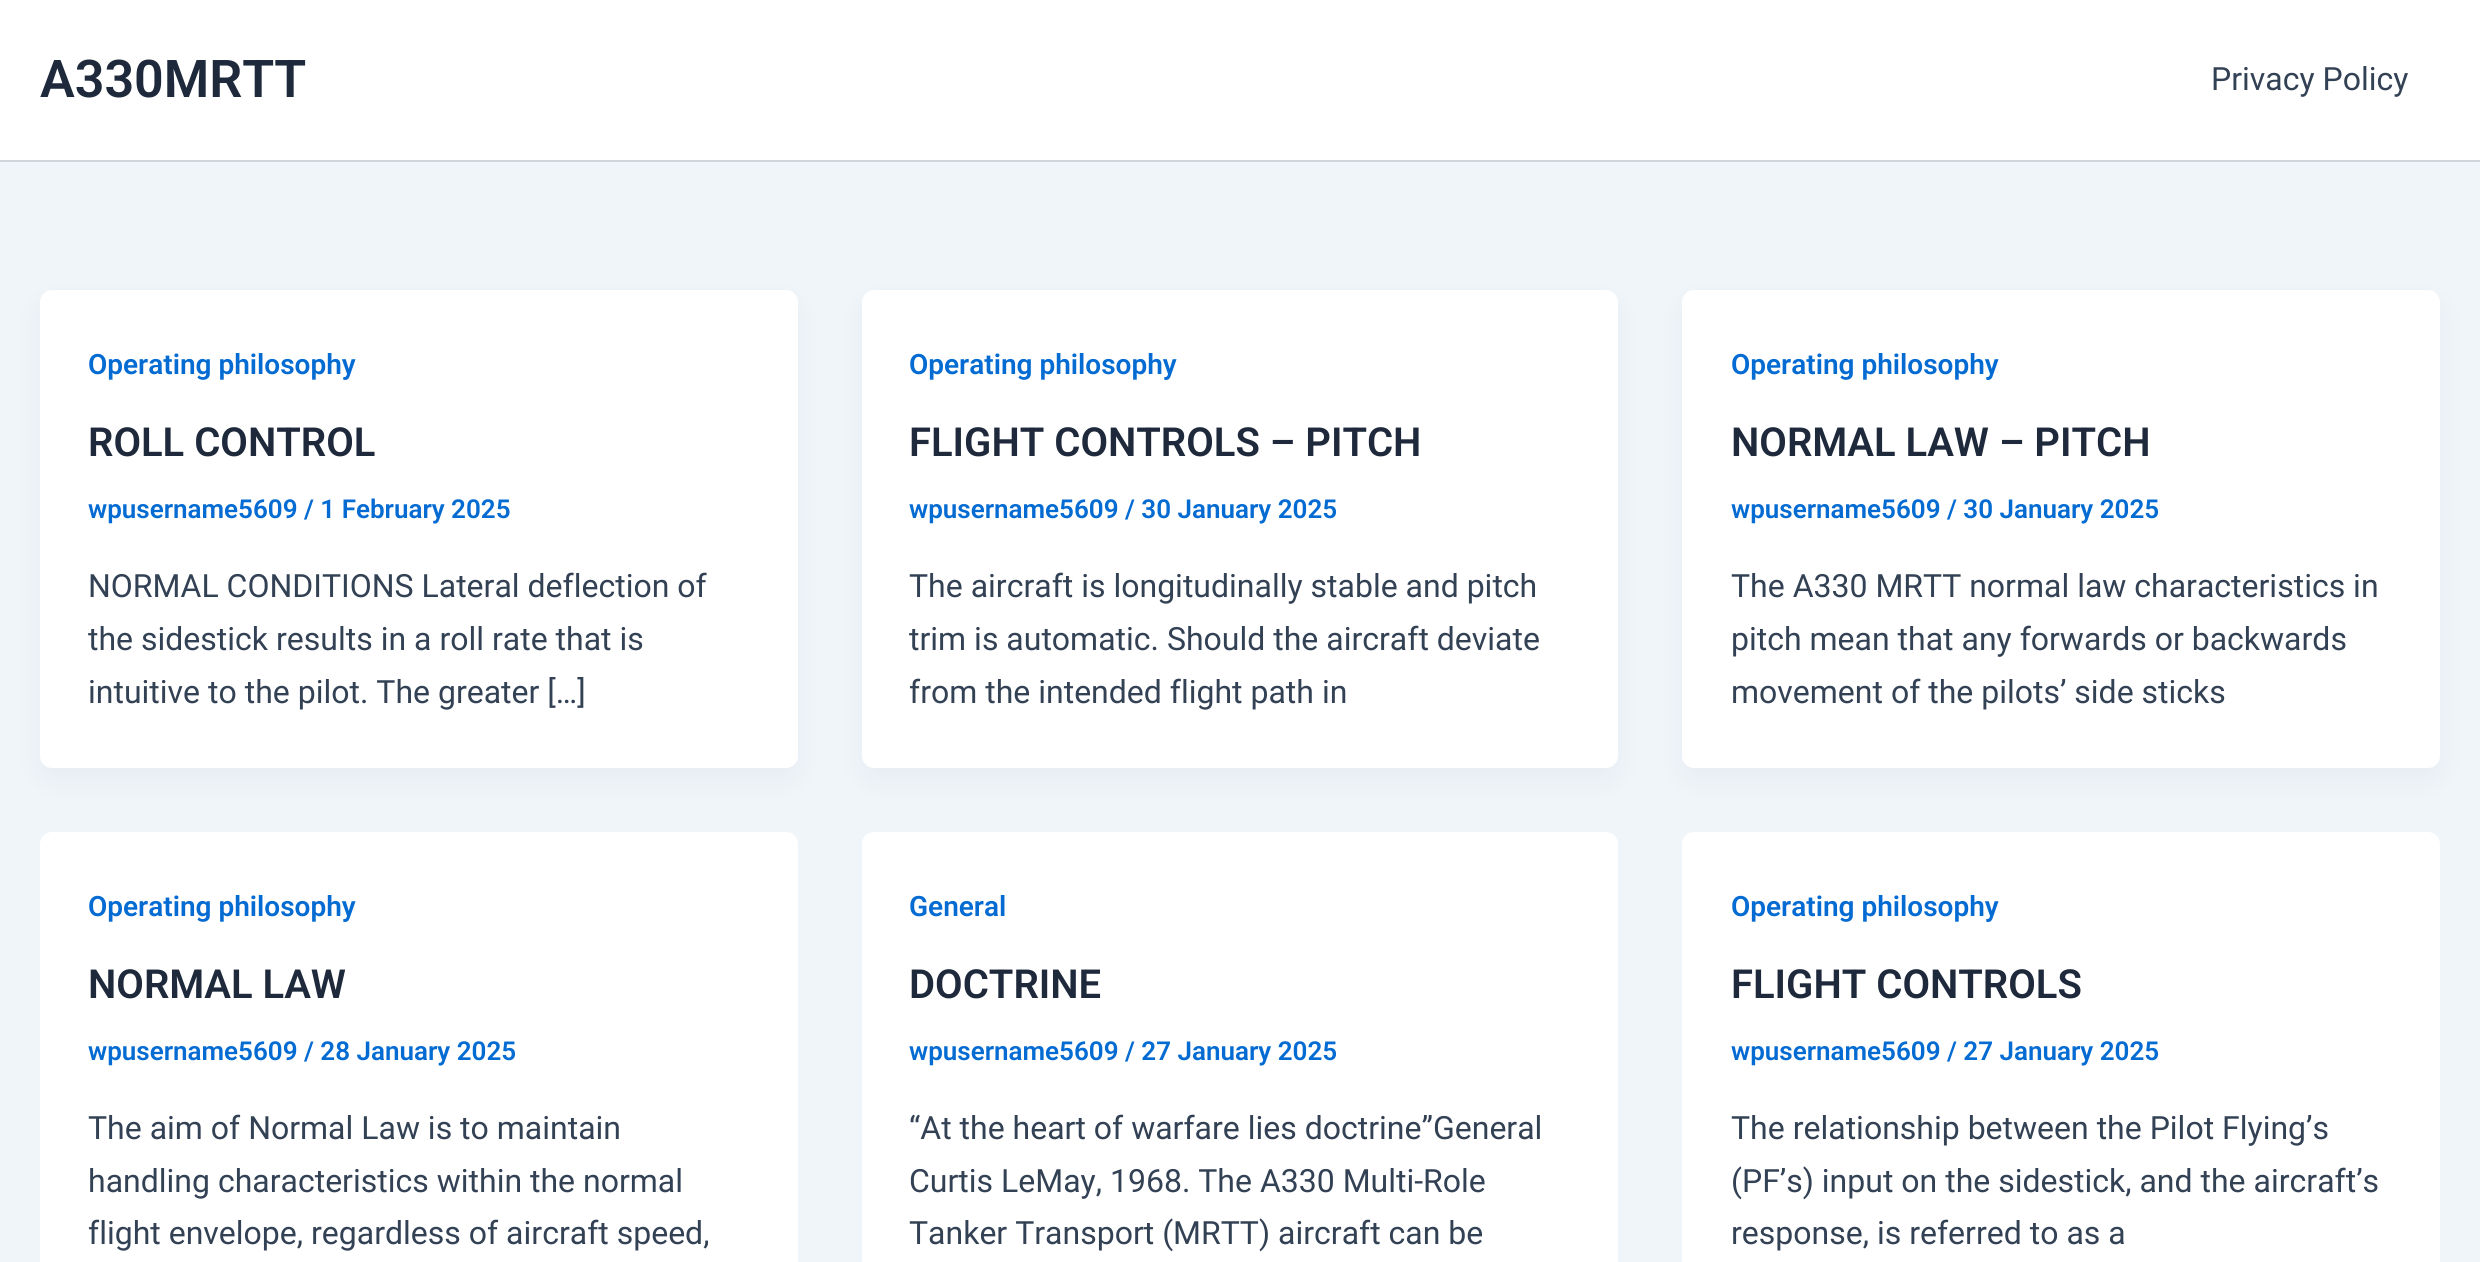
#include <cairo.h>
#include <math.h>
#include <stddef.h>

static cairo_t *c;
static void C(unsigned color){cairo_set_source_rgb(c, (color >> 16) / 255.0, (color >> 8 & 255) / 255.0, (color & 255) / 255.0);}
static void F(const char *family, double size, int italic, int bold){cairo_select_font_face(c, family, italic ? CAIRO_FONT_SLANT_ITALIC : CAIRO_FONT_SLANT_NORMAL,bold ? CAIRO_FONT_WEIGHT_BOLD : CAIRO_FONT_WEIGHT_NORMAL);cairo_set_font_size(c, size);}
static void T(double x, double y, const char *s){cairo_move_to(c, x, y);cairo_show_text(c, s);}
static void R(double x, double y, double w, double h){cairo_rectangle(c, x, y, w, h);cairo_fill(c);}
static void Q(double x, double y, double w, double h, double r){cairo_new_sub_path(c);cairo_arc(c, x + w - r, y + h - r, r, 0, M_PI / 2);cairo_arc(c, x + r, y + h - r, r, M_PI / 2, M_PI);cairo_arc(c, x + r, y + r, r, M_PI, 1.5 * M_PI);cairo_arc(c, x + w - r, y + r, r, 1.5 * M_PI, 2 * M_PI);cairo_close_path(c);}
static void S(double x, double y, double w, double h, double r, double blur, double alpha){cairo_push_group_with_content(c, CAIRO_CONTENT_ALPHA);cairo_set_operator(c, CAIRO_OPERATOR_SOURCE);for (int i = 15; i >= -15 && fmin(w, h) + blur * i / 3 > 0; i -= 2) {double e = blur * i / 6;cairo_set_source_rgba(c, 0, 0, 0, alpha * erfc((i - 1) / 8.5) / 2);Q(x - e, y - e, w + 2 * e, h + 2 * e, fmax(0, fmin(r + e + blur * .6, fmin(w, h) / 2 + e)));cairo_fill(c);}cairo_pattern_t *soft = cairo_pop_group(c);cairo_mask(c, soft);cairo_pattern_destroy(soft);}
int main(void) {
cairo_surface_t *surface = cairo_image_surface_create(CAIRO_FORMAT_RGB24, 2480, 1262);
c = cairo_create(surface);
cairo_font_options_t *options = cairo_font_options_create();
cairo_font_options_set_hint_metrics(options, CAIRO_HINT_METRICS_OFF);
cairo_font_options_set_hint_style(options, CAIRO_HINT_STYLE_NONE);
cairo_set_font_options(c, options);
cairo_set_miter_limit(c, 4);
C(0xf0f5fa);
cairo_paint(c);
C(0xffffff);
R(0,0,2480,160);
C(0xd1d5db);
R(0,160,2480,2);
F("Roboto SemiBold",52,0,0);
C(0x1e293b);
T(40,97,"A330MRTT");
F("Roboto",32,0,0);
C(0x334155);
T(2211,90,"Privacy Policy");
C(0x101828);
S(44,306,750,470,8,15,.05);
C(0xffffff);
Q(40,290,758,478,12);
cairo_fill(c);
F("Roboto SemiBold",28,0,0);
C(0x046bd2);
T(88,374,"Operating philosophy");
F("Roboto SemiBold",40,0,0);
C(0x1e293b);
T(88,456,"ROLL CONTROL");
F("Roboto SemiBold",26,0,0);
C(0x046bd2);
T(88,518,"wpusername5609 / 1 February 2025");
F("Roboto",32,0,0);
C(0x334155);
T(88,597,"NORMAL CONDITIONS Lateral deflection of");
T(88,650,"the sidestick results in a roll rate that is");
T(88,703,"intuitive to the pilot. The greater […]");
C(0x101828);
S(866,306,748,470,8,15,.05);
C(0xffffff);
Q(862,290,756,478,12);
cairo_fill(c);
F("Roboto SemiBold",28,0,0);
C(0x046bd2);
T(909,374,"Operating philosophy");
F("Roboto SemiBold",40,0,0);
C(0x1e293b);
T(909,456,"FLIGHT CONTROLS – PITCH");
F("Roboto SemiBold",26,0,0);
C(0x046bd2);
T(909,518,"wpusername5609 / 30 January 2025");
F("Roboto",32,0,0);
C(0x334155);
T(909,597,"The aircraft is longitudinally stable and pitch");
T(909,650,"trim is automatic. Should the aircraft deviate");
T(909,703,"from the intended flight path in");
C(0x101828);
S(1686,306,750,470,8,15,.05);
C(0xffffff);
Q(1682,290,758,478,12);
cairo_fill(c);
F("Roboto SemiBold",28,0,0);
C(0x046bd2);
T(1731,374,"Operating philosophy");
F("Roboto SemiBold",40,0,0);
C(0x1e293b);
T(1731,456,"NORMAL LAW – PITCH");
F("Roboto SemiBold",26,0,0);
C(0x046bd2);
T(1731,518,"wpusername5609 / 30 January 2025");
F("Roboto",32,0,0);
C(0x334155);
T(1731,597,"The A330 MRTT normal law characteristics in");
T(1731,650,"pitch mean that any forwards or backwards");
T(1731,703,"movement of the pilots’ side sticks");
C(0xffffff);
Q(40,832,758,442,12);
cairo_fill(c);
F("Roboto SemiBold",28,0,0);
C(0x046bd2);
T(88,916,"Operating philosophy");
F("Roboto SemiBold",40,0,0);
C(0x1e293b);
T(88,998,"NORMAL LAW");
F("Roboto SemiBold",26,0,0);
C(0x046bd2);
T(88,1060,"wpusername5609 / 28 January 2025");
F("Roboto",32,0,0);
C(0x334155);
T(88,1139,"The aim of Normal Law is to maintain");
T(88,1192,"handling characteristics within the normal");
T(88,1244,"flight envelope, regardless of aircraft speed,");
C(0xffffff);
Q(862,832,756,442,12);
cairo_fill(c);
F("Roboto SemiBold",28,0,0);
C(0x046bd2);
T(909,916,"General");
F("Roboto SemiBold",40,0,0);
C(0x1e293b);
T(909,998,"DOCTRINE");
F("Roboto SemiBold",26,0,0);
C(0x046bd2);
T(909,1060,"wpusername5609 / 27 January 2025");
F("Roboto",32,0,0);
C(0x334155);
T(909,1139,"“At the heart of warfare lies doctrine”General");
T(909,1192,"Curtis LeMay, 1968. The A330 Multi-Role");
T(909,1244,"Tanker Transport (MRTT) aircraft can be");
C(0xffffff);
Q(1682,832,758,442,12);
cairo_fill(c);
F("Roboto SemiBold",28,0,0);
C(0x046bd2);
T(1731,916,"Operating philosophy");
F("Roboto SemiBold",40,0,0);
C(0x1e293b);
T(1731,998,"FLIGHT CONTROLS");
F("Roboto SemiBold",26,0,0);
C(0x046bd2);
T(1731,1060,"wpusername5609 / 27 January 2025");
F("Roboto",32,0,0);
C(0x334155);
T(1731,1139,"The relationship between the Pilot Flying’s");
T(1731,1192,"(PF’s) input on the sidestick, and the aircraft’s");
T(1731,1244,"response, is referred to as a");
cairo_surface_write_to_png(surface, "o.png");
cairo_font_options_destroy(options);
cairo_destroy(c);
cairo_surface_destroy(surface);
return 0;
}
